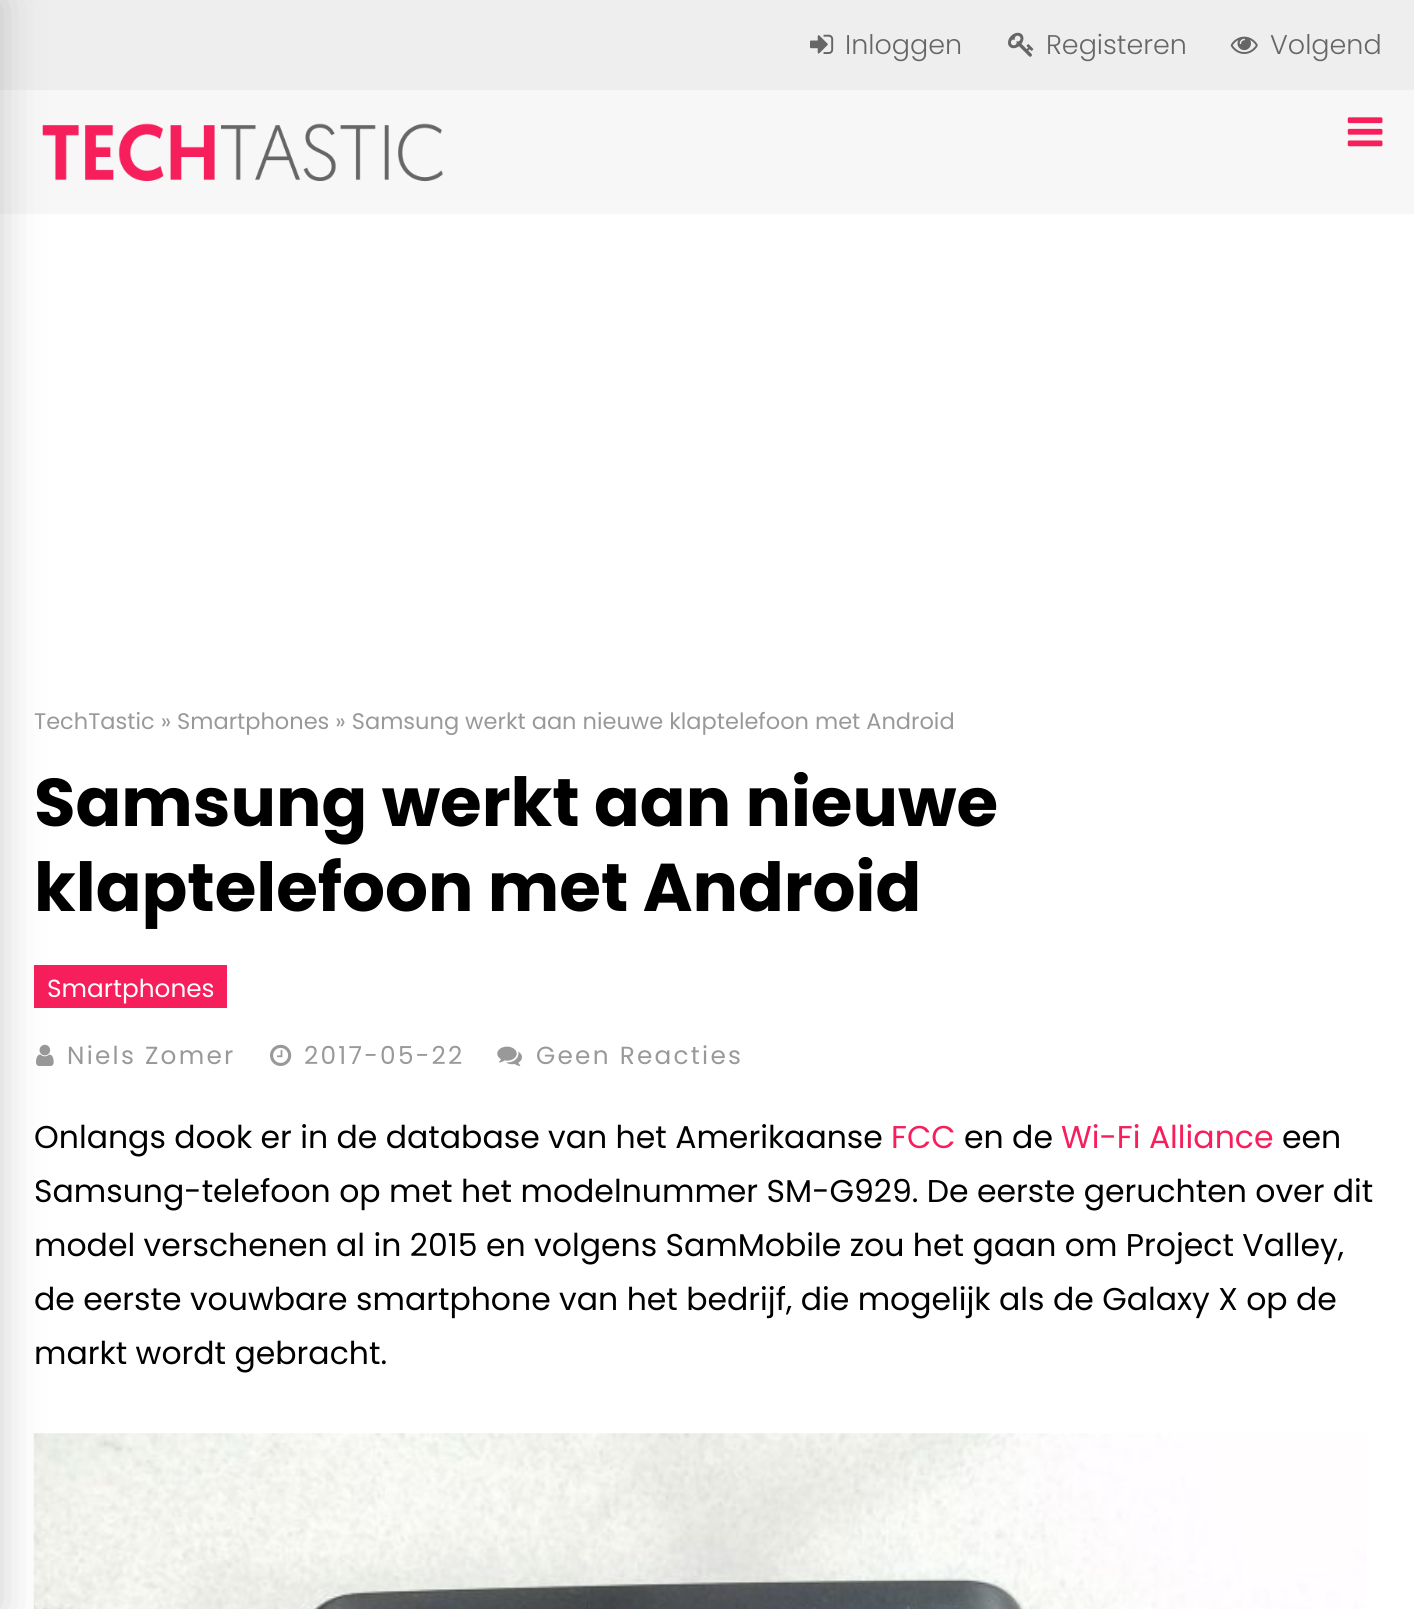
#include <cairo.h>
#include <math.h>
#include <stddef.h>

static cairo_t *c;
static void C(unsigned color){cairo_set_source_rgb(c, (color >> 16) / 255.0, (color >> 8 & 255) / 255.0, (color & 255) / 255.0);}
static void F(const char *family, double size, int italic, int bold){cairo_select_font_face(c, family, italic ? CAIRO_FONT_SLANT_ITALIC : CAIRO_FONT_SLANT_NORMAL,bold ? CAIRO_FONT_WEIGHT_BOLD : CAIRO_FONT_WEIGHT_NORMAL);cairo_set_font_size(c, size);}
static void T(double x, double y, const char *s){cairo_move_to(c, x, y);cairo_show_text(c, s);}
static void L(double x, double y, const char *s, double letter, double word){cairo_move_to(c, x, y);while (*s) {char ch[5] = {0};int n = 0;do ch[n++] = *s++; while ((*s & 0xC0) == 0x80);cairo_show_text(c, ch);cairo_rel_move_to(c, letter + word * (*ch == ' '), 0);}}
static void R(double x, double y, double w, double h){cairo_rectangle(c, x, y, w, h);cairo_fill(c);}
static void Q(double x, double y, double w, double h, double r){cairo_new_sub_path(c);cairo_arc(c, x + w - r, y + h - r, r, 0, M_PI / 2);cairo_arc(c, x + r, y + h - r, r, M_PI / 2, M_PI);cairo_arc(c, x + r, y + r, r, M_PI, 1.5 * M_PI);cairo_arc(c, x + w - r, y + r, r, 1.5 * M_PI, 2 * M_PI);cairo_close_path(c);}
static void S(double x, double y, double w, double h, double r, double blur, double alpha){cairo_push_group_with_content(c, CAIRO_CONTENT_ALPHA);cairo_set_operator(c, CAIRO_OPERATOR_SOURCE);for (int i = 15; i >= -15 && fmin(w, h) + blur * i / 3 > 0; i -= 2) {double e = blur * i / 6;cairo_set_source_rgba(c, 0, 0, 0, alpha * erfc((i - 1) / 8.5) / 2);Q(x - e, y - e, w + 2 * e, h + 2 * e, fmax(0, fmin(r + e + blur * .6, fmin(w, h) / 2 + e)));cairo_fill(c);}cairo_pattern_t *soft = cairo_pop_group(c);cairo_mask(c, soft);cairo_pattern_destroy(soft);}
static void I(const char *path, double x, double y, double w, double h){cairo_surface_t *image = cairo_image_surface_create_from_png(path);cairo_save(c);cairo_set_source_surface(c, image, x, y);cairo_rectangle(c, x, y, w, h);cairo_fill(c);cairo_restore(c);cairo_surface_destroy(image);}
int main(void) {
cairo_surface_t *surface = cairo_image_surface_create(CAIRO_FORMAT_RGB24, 1414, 1609);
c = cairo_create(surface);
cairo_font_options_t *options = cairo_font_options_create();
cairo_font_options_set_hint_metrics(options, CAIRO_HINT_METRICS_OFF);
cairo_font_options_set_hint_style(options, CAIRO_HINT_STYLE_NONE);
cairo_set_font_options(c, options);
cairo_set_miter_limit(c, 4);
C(0xffffff);
cairo_paint(c);
C(0xeeeeee);
R(0,0,1414,90);
C(0xf7f7f7);
R(0,90,1414,124);
I("4.png",42,123,401,59);
C(0xf61e5b);
R(34,965,193,43);
I("6.png",36,1044,18,22);
I("9.png",33,1433,1334,176);
C(0x000000);
S(-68,0,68,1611,0,22.5,.2);
I("1.png",810,34,24,20);
F("Poppins Light",27,0,0);
C(0x666666);
T(845,54,"Inloggen");
I("2.png",1008,32,26,25);
T(1046,54,"Registeren");
I("3.png",1230,36,28,18);
T(1270,54,"Volgend");
I("5.png",1347,117,36,30);
F("Poppins",22.5,0,0);
C(0x999999);
T(34,729,"TechTastic » Smartphones » Samsung werkt aan nieuwe klaptelefoon met Android");
F("Poppins",67.5,0,1);
C(0x000000);
T(34,826,"Samsung werkt aan nieuwe");
T(34,911,"klaptelefoon met Android");
F("Poppins",24.75,0,0);
C(0xffffff);
T(47,997,"Smartphones");
C(0x999999);
L(67,1064,"Niels Zomer",2.25,0);
I("7.png",270,1044,22,22);
L(304,1064,"2017-05-22",2.25,0);
I("8.png",497,1046,25,20);
L(536,1064,"Geen Reacties",2.25,0);
F("Poppins",31.5,0,0);
C(0x000000);
T(34,1148,"Onlangs dook er in de database van het Amerikaanse");
C(0xf61e5b);
T(891,1148,"FCC");
C(0x000000);
T(964,1148,"en de");
C(0xf61e5b);
T(1061,1148,"Wi-Fi Alliance");
C(0x000000);
T(1282,1148,"een");
T(34,1202,"Samsung-telefoon op met het modelnummer SM-G929. De eerste geruchten over dit");
T(34,1256,"model verschenen al in 2015 en volgens SamMobile zou het gaan om Project Valley,");
T(34,1310,"de eerste vouwbare smartphone van het bedrijf, die mogelijk als de Galaxy X op de");
T(34,1364,"markt wordt gebracht.");
cairo_surface_write_to_png(surface, "o.png");
cairo_font_options_destroy(options);
cairo_destroy(c);
cairo_surface_destroy(surface);
return 0;
}
